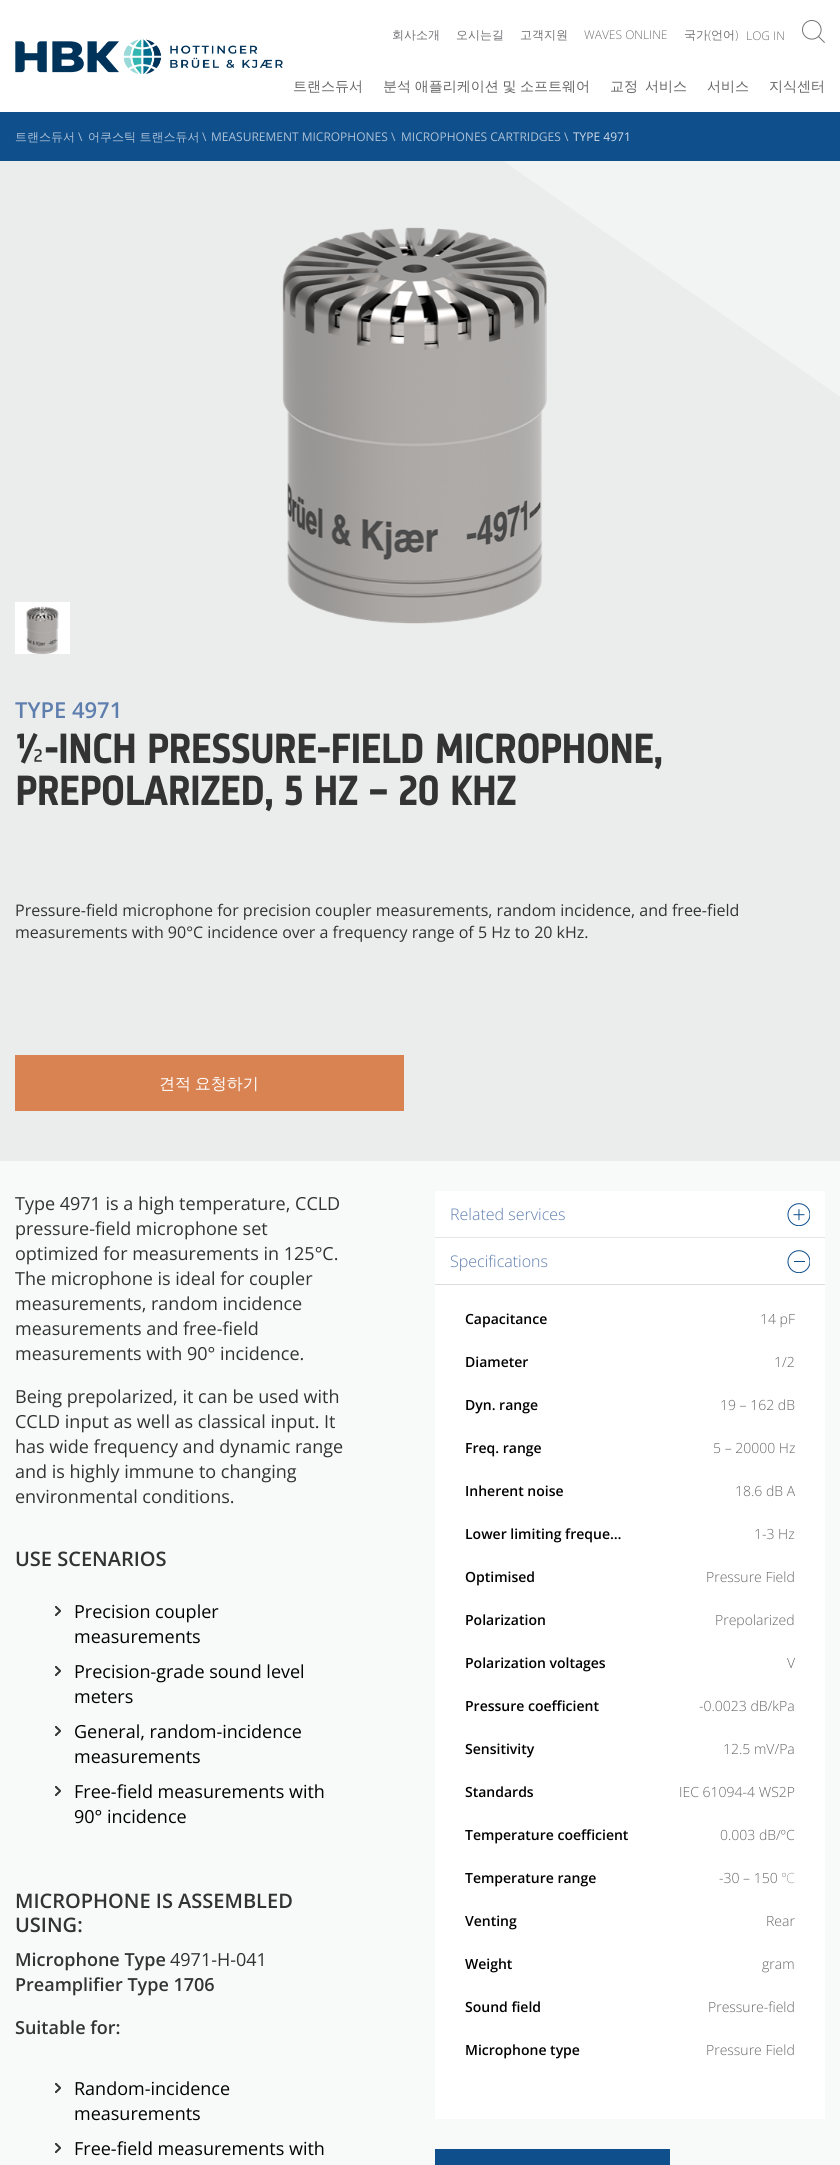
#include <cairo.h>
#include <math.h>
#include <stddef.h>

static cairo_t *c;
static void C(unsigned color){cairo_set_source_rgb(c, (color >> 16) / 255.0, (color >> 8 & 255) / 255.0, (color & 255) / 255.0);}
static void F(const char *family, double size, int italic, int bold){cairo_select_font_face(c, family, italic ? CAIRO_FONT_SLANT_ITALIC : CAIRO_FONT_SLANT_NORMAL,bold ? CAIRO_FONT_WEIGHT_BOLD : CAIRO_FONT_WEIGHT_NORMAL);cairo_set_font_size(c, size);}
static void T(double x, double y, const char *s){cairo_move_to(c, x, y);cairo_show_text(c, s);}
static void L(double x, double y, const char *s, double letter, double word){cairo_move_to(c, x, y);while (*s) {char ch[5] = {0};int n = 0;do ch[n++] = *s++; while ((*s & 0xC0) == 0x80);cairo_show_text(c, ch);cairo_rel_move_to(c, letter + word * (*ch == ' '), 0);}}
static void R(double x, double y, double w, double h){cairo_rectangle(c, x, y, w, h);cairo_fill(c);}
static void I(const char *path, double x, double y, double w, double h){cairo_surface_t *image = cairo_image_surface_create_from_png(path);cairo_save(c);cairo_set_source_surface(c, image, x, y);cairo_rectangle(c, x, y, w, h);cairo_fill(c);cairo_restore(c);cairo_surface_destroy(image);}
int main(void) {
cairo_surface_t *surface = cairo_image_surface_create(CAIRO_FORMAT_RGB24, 840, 2165);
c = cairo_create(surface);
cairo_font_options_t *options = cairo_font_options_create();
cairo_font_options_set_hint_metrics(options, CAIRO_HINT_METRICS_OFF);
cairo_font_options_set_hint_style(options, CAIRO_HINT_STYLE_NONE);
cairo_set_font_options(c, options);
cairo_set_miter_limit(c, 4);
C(0xffffff);
cairo_paint(c);
F("WenQuanYi Zen Hei Medium",12,0,0);
C(0x717073);
T(392,39,"회사소개");
T(456,39,"오시는길");
T(520,39,"고객지원");
F("Open Sans Light",12,0,0);
T(584,39,"WAVES ONLINE");
F("WenQuanYi Zen Hei Medium",12,0,0);
T(684,39,"국가");
F("Open Sans Light",12,0,0);
T(708,39,"(");
F("WenQuanYi Zen Hei Medium",12,0,0);
T(711,39,"언어");
F("Open Sans Light",12,0,0);
T(735,39,")");
T(746,40,"LOG IN");
I("1.png",802,20,23,23);
I("2.png",15,39,268,35);
F("WenQuanYi Zen Hei Medium",14,0,0);
C(0x666666);
T(293,91,"트랜스듀서");
L(383,91,"분석 애플리케이션 및 소프트웨어",0,-.5);
T(610,91,"교정");
T(645,91,"서비스");
T(707,91,"서비스");
T(769,91,"지식센터");
C(0x0f4f8c);
R(0,112,840,49);
F("WenQuanYi Zen Hei Medium",12,0,0);
C(0xabc1d7);
T(15,141,"트랜스듀서");
F("Open Sans",12,0,0);
T(78,141,"\\");
F("WenQuanYi Zen Hei Medium",12,0,0);
T(88,141,"어쿠스틱 트랜스듀서");
F("Open Sans",12,0,0);
T(202,141,"\\");
T(211,141,"MEASUREMENT MICROPHONES \\");
T(401,141,"MICROPHONES CARTRIDGES \\");
C(0xcfdce8);
T(573,141,"TYPE 4971");
C(0xebecec);
R(0,161,840,1000);
I("3.png",504,161,336,235);
C(0xffffff);
R(15,602,55,52);
I("4.png",26,606,33,48);
I("5.png",282,227,265,397);
F("Open Sans SemiBold",22,0,0);
C(0x5e7eae);
T(15,718,"TYPE 4971");
F("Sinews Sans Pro",42,0,1);
C(0x333333);
T(15,763,"½-INCH PRESSURE-FIELD MICROPHONE,");
T(15,805,"PREPOLARIZED, 5 HZ – 20 KHZ");
F("Open Sans",16,0,0);
T(15,916,"Pressure-field microphone for precision coupler measurements, random incidence, and free-field");
T(15,938,"measurements with 90°C incidence over a frequency range of 5 Hz to 20 kHz.");
C(0xd98353);
R(15,1055,389,56);
F("WenQuanYi Zen Hei Medium",16,0,0);
C(0xffffff);
L(159,1089,"견적 요청하기",0,-1);
C(0xf8f9f9);
R(0,1161,840,1004);
F("Open Sans",18,0,0);
C(0x333333);
T(15,1210,"Type 4971 is a high temperature, CCLD");
T(15,1235,"pressure-field microphone set");
T(15,1260,"optimized for measurements in 125°C.");
T(15,1285,"The microphone is ideal for coupler");
T(15,1310,"measurements, random incidence");
T(15,1335,"measurements and free-field");
T(15,1360,"measurements with 90° incidence.");
T(15,1403,"Being prepolarized, it can be used with");
T(15,1428,"CCLD input as well as classical input. It");
T(15,1453,"has wide frequency and dynamic range");
T(15,1478,"and is highly immune to changing");
T(15,1503,"environmental conditions.");
F("Open Sans SemiBold",20,0,0);
T(15,1566,"USE SCENARIOS");
I("6.png",55,1606,6,10);
F("Open Sans",18,0,0);
C(0x000000);
T(74,1618,"Precision coupler");
T(74,1643,"measurements");
I("6.png",55,1666,6,10);
T(74,1678,"Precision-grade sound level");
T(74,1703,"meters");
I("6.png",55,1726,6,10);
T(74,1738,"General, random-incidence");
T(74,1763,"measurements");
I("6.png",55,1786,6,10);
T(74,1798,"Free-field measurements with");
T(74,1823,"90° incidence");
F("Open Sans SemiBold",20,0,0);
C(0x333333);
T(15,1908,"MICROPHONE IS ASSEMBLED");
T(15,1932,"USING:");
F("Open Sans SemiBold",18,0,0);
T(15,1966,"Microphone Type");
F("Open Sans",18,0,0);
T(170,1966,"4971-H-041");
F("Open Sans SemiBold",18,0,0);
T(15,1991,"Preamplifier Type 1706");
T(15,2034,"Suitable for:");
I("6.png",55,2083,6,10);
F("Open Sans",18,0,0);
C(0x000000);
T(74,2095,"Random-incidence");
T(74,2120,"measurements");
I("6.png",55,2143,6,10);
T(74,2155,"Free-field measurements with");
C(0xffffff);
R(435,1191,390,46);
C(0xe4e5e5);
R(435,1237,390,1);
F("Open Sans Light",16,0,0);
C(0x5e7eae);
T(450,1220,"Related services");
I("7.png",787,1203,23,23);
C(0xffffff);
R(435,1238,390,881);
C(0x5e7eae);
T(450,1267,"Specifications");
I("8.png",787,1250,23,23);
C(0xdddddd);
R(435,1284,390,1);
F("Open Sans SemiBold",14,0,0);
C(0x000000);
T(465,1324,"Capacitance");
F("Open Sans Light",14,0,0);
C(0x666666);
T(760,1324,"14 pF");
F("Open Sans SemiBold",14,0,0);
C(0x000000);
T(465,1367,"Diameter");
F("Open Sans Light",14,0,0);
C(0x666666);
T(774,1367,"1/2");
F("Open Sans SemiBold",14,0,0);
C(0x000000);
T(465,1410,"Dyn. range");
F("Open Sans Light",14,0,0);
C(0x666666);
T(720,1410,"19 – 162 dB");
F("Open Sans SemiBold",14,0,0);
C(0x000000);
T(465,1453,"Freq. range");
F("Open Sans Light",14,0,0);
C(0x666666);
T(713,1453,"5 – 20000 Hz");
F("Open Sans SemiBold",14,0,0);
C(0x000000);
T(465,1496,"Inherent noise");
F("Open Sans Light",14,0,0);
C(0x666666);
T(735,1496,"18.6 dB A");
F("Open Sans SemiBold",14,0,0);
C(0x000000);
T(465,1539,"Lower limiting freque…");
F("Open Sans Light",14,0,0);
C(0x666666);
T(754,1539,"1-3 Hz");
F("Open Sans SemiBold",14,0,0);
C(0x000000);
T(465,1582,"Optimised");
F("Open Sans Light",14,0,0);
C(0x666666);
T(706,1582,"Pressure Field");
F("Open Sans SemiBold",14,0,0);
C(0x000000);
T(465,1625,"Polarization");
F("Open Sans Light",14,0,0);
C(0x666666);
T(715,1625,"Prepolarized");
F("Open Sans SemiBold",14,0,0);
C(0x000000);
T(465,1668,"Polarization voltages");
F("Open Sans Light",14,0,0);
C(0x666666);
T(787,1668,"V");
F("Open Sans SemiBold",14,0,0);
C(0x000000);
T(465,1711,"Pressure coefficient");
F("Open Sans Light",14,0,0);
C(0x666666);
T(699,1711,"-0.0023 dB/kPa");
F("Open Sans SemiBold",14,0,0);
C(0x000000);
T(465,1754,"Sensitivity");
F("Open Sans Light",14,0,0);
C(0x666666);
T(723,1754,"12.5 mV/Pa");
F("Open Sans SemiBold",14,0,0);
C(0x000000);
T(465,1797,"Standards");
F("Open Sans Light",14,0,0);
C(0x666666);
T(679,1797,"IEC 61094-4 WS2P");
F("Open Sans SemiBold",14,0,0);
C(0x000000);
T(465,1840,"Temperature coefficient");
F("Open Sans Light",14,0,0);
C(0x666666);
T(720,1840,"0.003 dB/ºC");
F("Open Sans SemiBold",14,0,0);
C(0x000000);
T(465,1883,"Temperature range");
F("Open Sans Light",14,0,0);
C(0x666666);
T(719,1883,"-30 – 150");
F("Noto Sans Thin",14,0,0);
T(781,1883,"℃");
F("Open Sans SemiBold",14,0,0);
C(0x000000);
T(465,1926,"Venting");
F("Open Sans Light",14,0,0);
C(0x666666);
T(766,1926,"Rear");
F("Open Sans SemiBold",14,0,0);
C(0x000000);
T(465,1969,"Weight");
F("Open Sans Light",14,0,0);
C(0x666666);
T(762,1969,"gram");
F("Open Sans SemiBold",14,0,0);
C(0x000000);
T(465,2012,"Sound field");
F("Open Sans Light",14,0,0);
C(0x666666);
T(708,2012,"Pressure-field");
F("Open Sans SemiBold",14,0,0);
C(0x000000);
T(465,2055,"Microphone type");
F("Open Sans Light",14,0,0);
C(0x666666);
T(706,2055,"Pressure Field");
C(0x0f4f8c);
R(435,2149,235,16);
cairo_surface_write_to_png(surface, "o.png");
cairo_font_options_destroy(options);
cairo_destroy(c);
cairo_surface_destroy(surface);
return 0;
}
